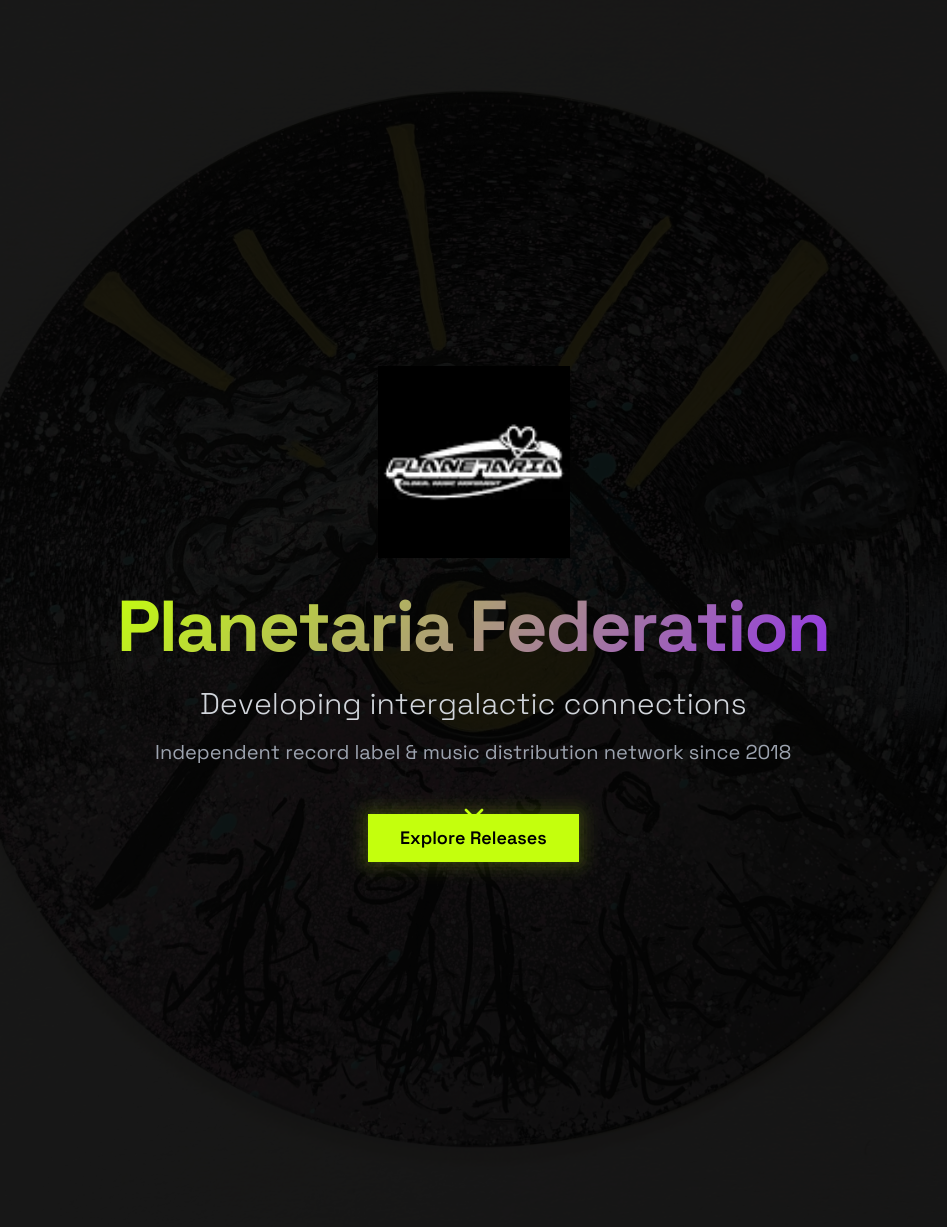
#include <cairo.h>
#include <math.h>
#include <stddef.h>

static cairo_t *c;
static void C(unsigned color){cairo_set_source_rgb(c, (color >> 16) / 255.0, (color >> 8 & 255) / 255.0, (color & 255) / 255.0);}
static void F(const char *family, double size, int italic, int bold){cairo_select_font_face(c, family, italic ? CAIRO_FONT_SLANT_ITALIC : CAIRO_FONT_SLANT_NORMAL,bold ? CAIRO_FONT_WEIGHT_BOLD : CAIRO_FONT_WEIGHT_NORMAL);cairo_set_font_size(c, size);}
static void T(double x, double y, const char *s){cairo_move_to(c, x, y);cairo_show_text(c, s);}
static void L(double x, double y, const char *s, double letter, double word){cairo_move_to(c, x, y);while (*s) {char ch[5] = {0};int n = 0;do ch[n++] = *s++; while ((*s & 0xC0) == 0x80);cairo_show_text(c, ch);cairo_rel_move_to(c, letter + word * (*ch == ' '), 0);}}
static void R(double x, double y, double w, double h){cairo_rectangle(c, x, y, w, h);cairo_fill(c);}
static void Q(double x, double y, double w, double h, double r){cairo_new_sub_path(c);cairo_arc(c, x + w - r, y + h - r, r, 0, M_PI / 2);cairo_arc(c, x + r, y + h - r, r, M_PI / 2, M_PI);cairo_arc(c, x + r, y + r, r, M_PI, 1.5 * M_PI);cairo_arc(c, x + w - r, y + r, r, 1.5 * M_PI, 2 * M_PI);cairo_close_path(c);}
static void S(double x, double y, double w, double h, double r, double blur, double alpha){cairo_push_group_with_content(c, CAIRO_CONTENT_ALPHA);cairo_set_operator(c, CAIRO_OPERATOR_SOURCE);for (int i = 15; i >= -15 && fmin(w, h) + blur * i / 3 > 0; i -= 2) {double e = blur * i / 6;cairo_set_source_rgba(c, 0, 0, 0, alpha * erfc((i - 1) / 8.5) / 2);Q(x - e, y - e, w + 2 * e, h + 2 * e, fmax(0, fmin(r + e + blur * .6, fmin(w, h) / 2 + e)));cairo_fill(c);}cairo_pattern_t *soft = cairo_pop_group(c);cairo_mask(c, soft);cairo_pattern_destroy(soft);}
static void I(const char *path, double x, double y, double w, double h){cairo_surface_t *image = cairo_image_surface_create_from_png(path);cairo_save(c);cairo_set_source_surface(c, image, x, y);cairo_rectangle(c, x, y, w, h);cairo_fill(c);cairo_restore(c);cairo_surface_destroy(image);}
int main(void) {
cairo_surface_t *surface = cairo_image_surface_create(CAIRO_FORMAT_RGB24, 947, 1227);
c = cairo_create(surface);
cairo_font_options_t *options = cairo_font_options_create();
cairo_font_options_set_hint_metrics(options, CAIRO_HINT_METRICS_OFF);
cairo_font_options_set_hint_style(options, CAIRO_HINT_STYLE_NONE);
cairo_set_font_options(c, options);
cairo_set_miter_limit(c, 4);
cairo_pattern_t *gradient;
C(0x030303);
cairo_paint(c);
I("1.png",0,0,947,1227);
I("2.png",378,366,192,192);
F("Space Grotesk",72,0,1);
gradient = cairo_pattern_create_linear(272,424,675,827);
cairo_pattern_add_color_stop_rgba(gradient,0,0.769,1,0.051,1);
cairo_pattern_add_color_stop_rgba(gradient,1,0.576,0.2,0.918,1);
cairo_set_source(c,gradient);
cairo_pattern_destroy(gradient);
L(117,651,"Planetaria Federation",-1.8,0);
F("Space Grotesk Light",30,0,0);
C(0xd1d5db);
T(200,714,"Developing intergalactic connections");
F("Space Grotesk",20,0,0);
C(0x9ca3af);
T(155,759,"Independent record label & music distribution network since 2018");
C(0xc4ff0d);
S(368,814,211,48,0,10,.3);
C(0xc4ff0d);
R(368,814,211,48);
cairo_new_path(c);
cairo_move_to(c,466,810);
cairo_line_to(c,474,818);
cairo_line_to(c,482,810);
cairo_set_line_width(c,2.7);
cairo_set_line_cap(c,CAIRO_LINE_CAP_ROUND);
cairo_set_line_join(c,CAIRO_LINE_JOIN_ROUND);
cairo_stroke(c);
F("Space Grotesk SemiBold",18,0,0);
C(0x000000);
T(400,844,"Explore Releases");
cairo_surface_write_to_png(surface, "o.png");
cairo_font_options_destroy(options);
cairo_destroy(c);
cairo_surface_destroy(surface);
return 0;
}
